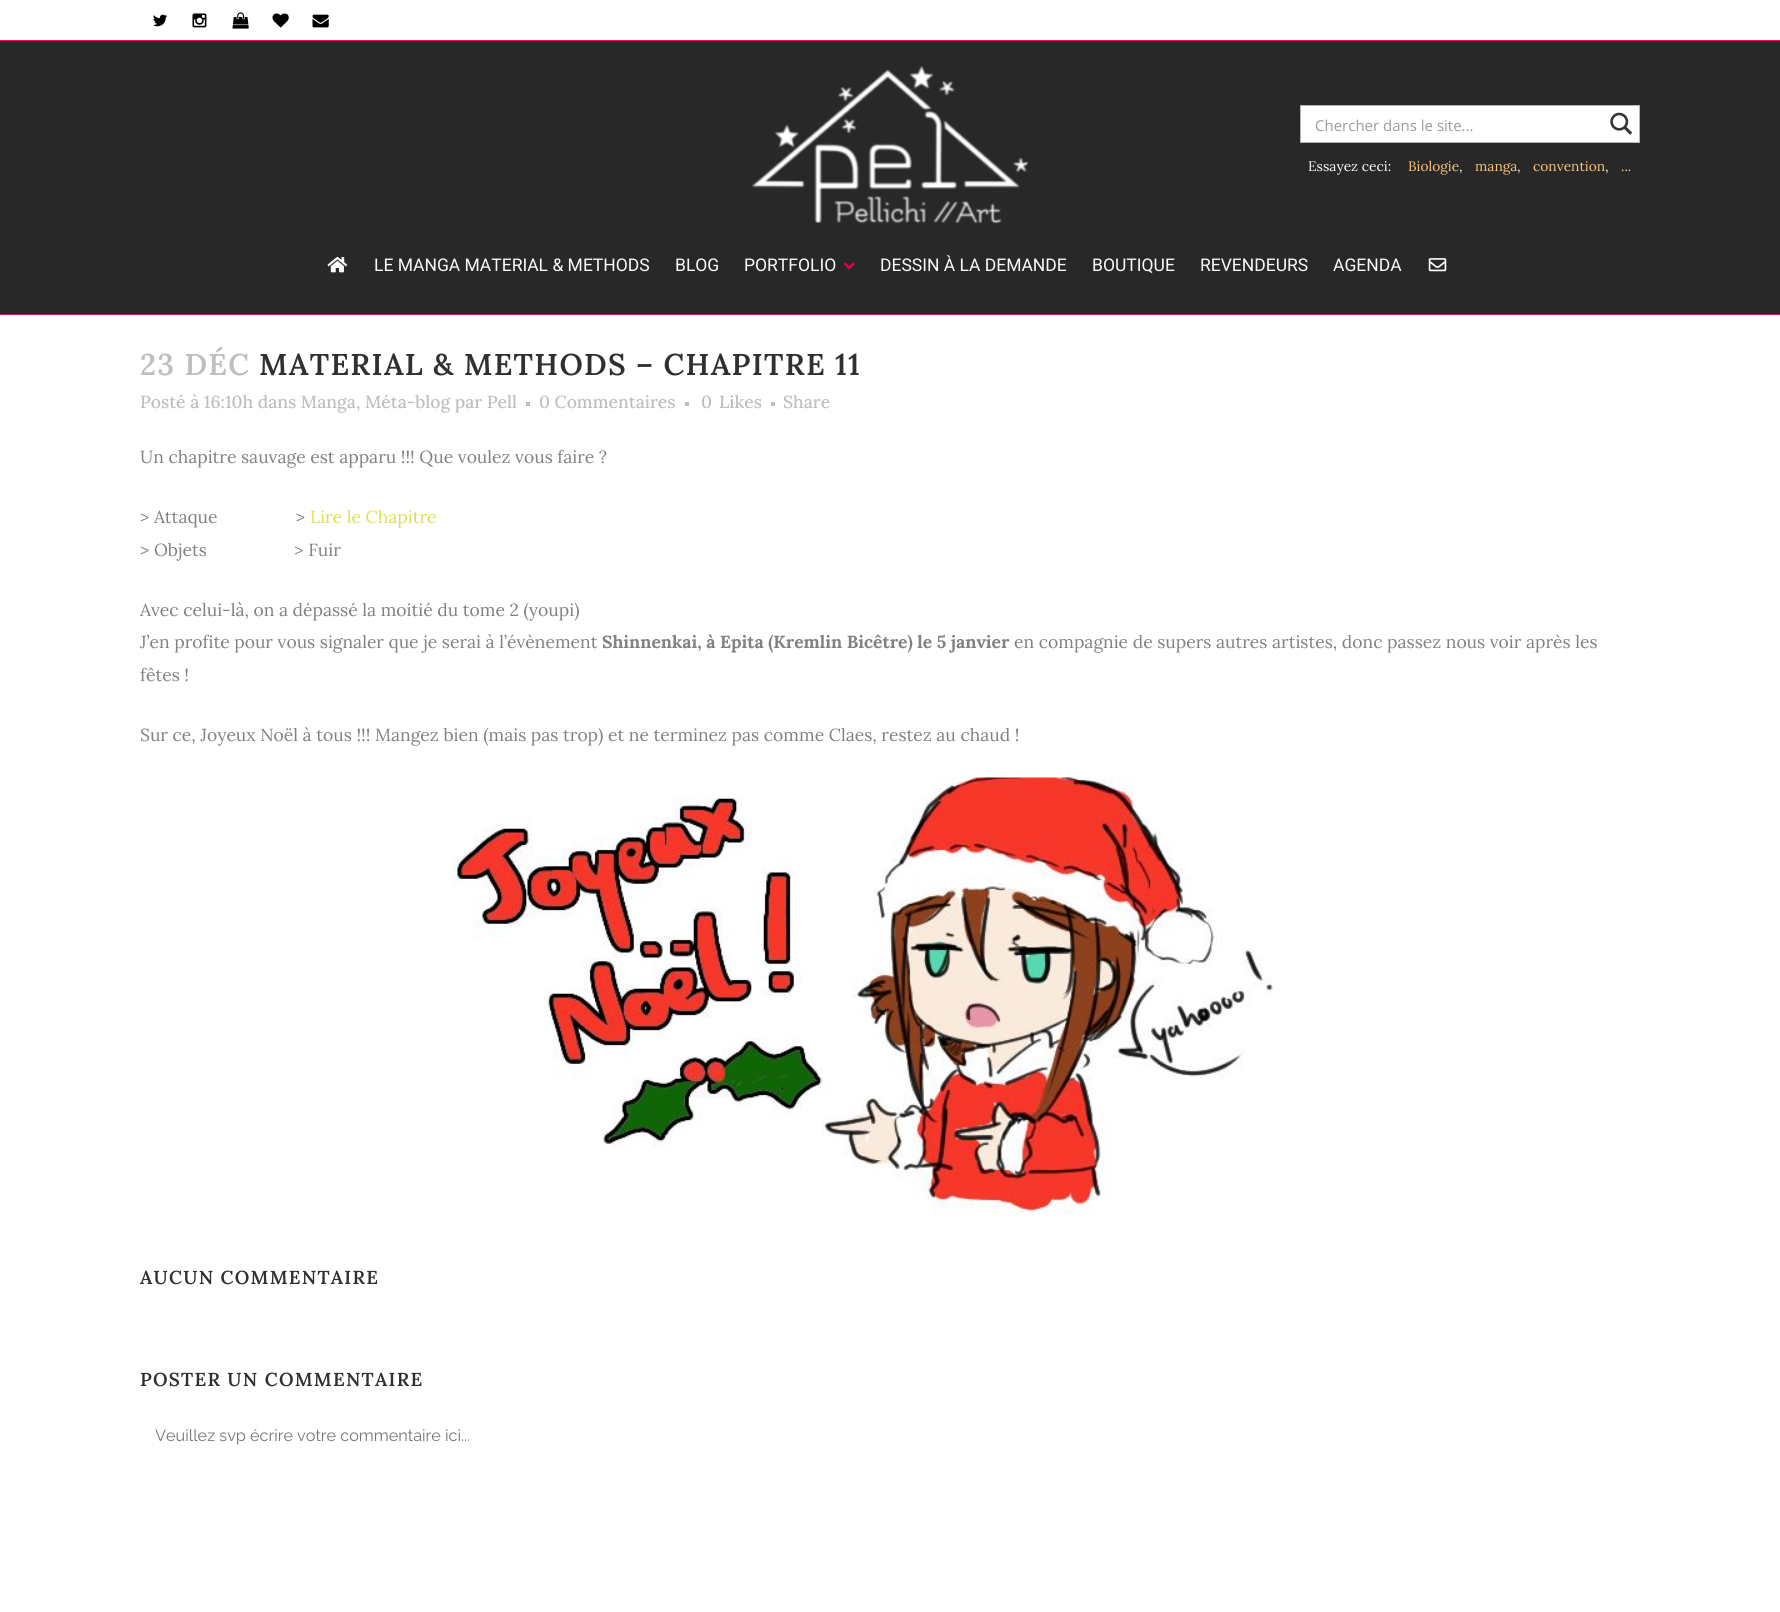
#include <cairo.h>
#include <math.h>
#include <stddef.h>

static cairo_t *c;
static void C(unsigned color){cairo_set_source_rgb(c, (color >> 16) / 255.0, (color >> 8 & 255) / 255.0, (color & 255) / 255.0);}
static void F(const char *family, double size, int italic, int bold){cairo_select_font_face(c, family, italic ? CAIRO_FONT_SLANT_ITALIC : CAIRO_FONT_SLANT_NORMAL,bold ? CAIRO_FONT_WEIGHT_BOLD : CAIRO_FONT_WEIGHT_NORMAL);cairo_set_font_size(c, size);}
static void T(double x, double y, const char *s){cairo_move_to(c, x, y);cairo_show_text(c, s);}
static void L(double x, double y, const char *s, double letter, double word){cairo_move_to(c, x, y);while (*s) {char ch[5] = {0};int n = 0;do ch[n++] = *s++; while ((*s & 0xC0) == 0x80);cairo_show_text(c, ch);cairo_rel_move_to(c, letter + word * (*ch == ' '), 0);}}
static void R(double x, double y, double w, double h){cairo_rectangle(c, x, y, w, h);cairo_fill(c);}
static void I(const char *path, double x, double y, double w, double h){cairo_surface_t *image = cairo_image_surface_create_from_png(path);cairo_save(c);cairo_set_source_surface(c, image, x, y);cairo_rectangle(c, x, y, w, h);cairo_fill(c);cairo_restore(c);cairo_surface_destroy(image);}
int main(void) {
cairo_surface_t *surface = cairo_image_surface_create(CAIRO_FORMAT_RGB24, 1780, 1612);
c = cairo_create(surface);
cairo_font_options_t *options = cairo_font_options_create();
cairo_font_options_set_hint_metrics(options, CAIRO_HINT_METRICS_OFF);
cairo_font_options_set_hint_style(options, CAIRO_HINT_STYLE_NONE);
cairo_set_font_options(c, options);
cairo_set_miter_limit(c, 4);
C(0xffffff);
cairo_paint(c);
C(0xea0e4c);
R(0,40,1780,1);
I("1.png",153,14,14,13);
I("2.png",192,13,15,15);
I("3.png",232,12,17,17);
I("4.png",272,13,17,15);
I("5.png",312,14,17,14);
C(0x282828);
R(0,41,1780,273);
C(0xea0e4c);
R(0,314,1780,1);
I("6.png",752,66,276,158);
C(0xffffff);
cairo_rectangle(c,1300.5,105.5,339,37);
cairo_fill_preserve(c);
C(0xb5b5b5);
cairo_set_line_width(c,1);
cairo_stroke(c);
F("Open Sans",15,0,0);
C(0x9b9b9b);
T(1315,131,"Chercher dans le site...");
I("7.png",1610,112,23,23);
F("Lora",13.75,0,0);
C(0xfafafa);
T(1308,171,"Essayez ceci:");
C(0xfac179);
T(1408,171,"Biologie");
C(0xfafafa);
T(1459,171,",");
C(0xfac179);
T(1475,171,"manga");
C(0xfafafa);
T(1517,171,",");
C(0xfac179);
T(1533,171,"convention");
C(0xfafafa);
T(1605,171,",");
C(0xfac179);
T(1621,171,"...");
I("8.png",327,257,21,16);
F("Roboto",17.5,0,0);
C(0xfafafa);
T(374,271,"LE MANGA MATERIAL & METHODS");
T(675,271,"BLOG");
T(744,271,"PORTFOLIO");
I("9.png",843,262,12,8);
T(880,271,"DESSIN À LA DEMANDE");
T(1092,271,"BOUTIQUE");
T(1200,271,"REVENDEURS");
T(1333,271,"AGENDA");
I("10.png",1428,258,19,14);
F("Lora SemiBold",30,0,0);
C(0xbebebe);
L(140,375,"23 DÉC",1.25,0);
C(0x303030);
L(259,375,"MATERIAL & METHODS – CHAPITRE 11",1.25,0);
F("Lora Medium",17.5,0,0);
C(0xbebebe);
T(140,408,"Posté à 16:10h dans Manga, Méta-blog par Pell");
R(526,402,4,4);
T(539,408,"0 Commentaires");
R(685,402,4,4);
T(701,408,"0");
T(719,408,"Likes");
R(771,402,4,4);
T(783,408,"Share");
F("Lora",17.5,0,0);
C(0x818181);
T(140,463,"Un chapitre sauvage est apparu !!! Que voulez vous faire ?");
T(140,523,"> Attaque                 >");
C(0xdde04b);
T(310,523,"Lire le Chapitre");
C(0x818181);
T(140,556,"> Objets                   > Fuir");
T(140,616,"Avec celui-là, on a dépassé la moitié du tome 2 (youpi)");
T(140,648,"J’en profite pour vous signaler que je serai à l’évènement");
F("Lora",17.5,0,1);
T(602,648,"Shinnenkai, à Epita (Kremlin Bicêtre) le 5 janvier");
F("Lora",17.5,0,0);
T(1014,648,"en compagnie de supers autres artistes, donc passez nous voir après les");
T(140,681,"fêtes !");
T(140,741,"Sur ce, Joyeux Noël à tous !!! Mangez bien (mais pas trop) et ne terminez pas comme Claes, restez au chaud !");
I("11.png",452,777,821,438);
F("Lora SemiBold",18.75,0,0);
C(0x303030);
L(140,1284,"AUCUN COMMENTAIRE",1.25,0);
L(140,1386,"POSTER UN COMMENTAIRE",1.25,0);
F("Raleway",16.25,0,0);
C(0x757575);
T(155,1441,"Veuillez svp écrire votre commentaire ici...");
cairo_surface_write_to_png(surface, "o.png");
cairo_font_options_destroy(options);
cairo_destroy(c);
cairo_surface_destroy(surface);
return 0;
}
